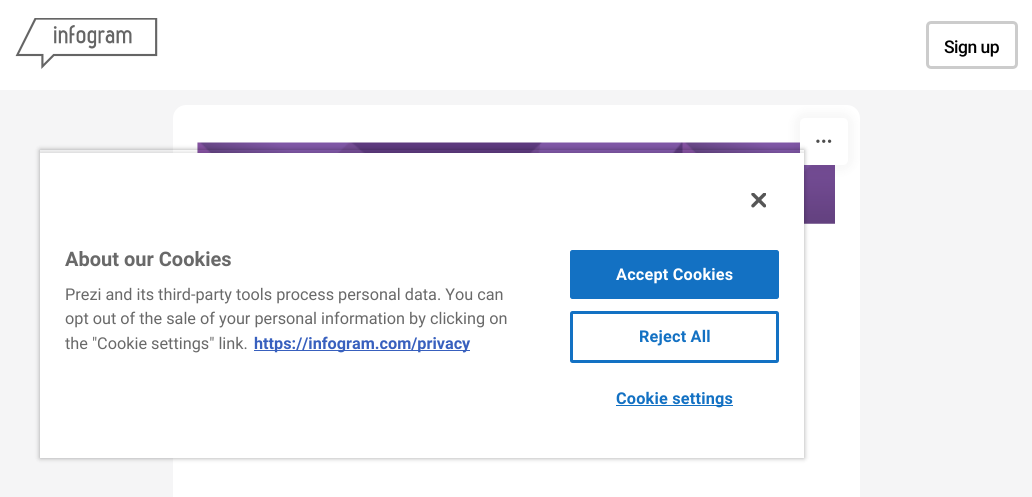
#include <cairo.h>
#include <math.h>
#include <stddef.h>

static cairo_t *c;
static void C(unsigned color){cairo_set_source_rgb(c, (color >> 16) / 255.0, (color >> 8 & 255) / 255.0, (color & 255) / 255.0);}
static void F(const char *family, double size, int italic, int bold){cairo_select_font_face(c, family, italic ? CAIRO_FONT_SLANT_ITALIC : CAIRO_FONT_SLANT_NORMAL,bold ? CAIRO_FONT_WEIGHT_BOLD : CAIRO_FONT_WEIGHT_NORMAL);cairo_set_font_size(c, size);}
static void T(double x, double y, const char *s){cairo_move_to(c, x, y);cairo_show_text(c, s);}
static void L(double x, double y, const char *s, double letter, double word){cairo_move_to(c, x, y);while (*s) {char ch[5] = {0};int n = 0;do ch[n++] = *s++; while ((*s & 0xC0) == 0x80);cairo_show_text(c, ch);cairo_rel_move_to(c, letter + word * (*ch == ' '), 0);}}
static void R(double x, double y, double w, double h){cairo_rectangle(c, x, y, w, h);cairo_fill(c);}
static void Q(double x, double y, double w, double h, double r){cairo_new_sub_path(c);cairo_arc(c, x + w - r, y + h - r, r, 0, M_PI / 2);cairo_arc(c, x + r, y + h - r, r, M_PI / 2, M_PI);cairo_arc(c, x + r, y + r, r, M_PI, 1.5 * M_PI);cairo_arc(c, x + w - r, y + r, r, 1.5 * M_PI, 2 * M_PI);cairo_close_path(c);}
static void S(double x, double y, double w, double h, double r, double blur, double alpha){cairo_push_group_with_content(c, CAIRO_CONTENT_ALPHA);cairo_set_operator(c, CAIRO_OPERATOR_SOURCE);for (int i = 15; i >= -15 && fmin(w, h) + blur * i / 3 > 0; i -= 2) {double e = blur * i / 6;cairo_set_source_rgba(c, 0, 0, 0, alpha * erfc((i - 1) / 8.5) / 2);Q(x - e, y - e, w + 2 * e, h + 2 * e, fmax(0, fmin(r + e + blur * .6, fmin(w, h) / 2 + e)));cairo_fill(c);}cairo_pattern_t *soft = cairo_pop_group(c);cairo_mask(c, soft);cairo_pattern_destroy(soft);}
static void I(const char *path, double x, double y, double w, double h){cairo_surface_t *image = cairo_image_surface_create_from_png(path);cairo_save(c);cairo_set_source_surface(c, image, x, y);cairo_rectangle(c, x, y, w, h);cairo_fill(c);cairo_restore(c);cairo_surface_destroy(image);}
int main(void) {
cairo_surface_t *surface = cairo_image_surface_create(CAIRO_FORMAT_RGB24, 1032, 497);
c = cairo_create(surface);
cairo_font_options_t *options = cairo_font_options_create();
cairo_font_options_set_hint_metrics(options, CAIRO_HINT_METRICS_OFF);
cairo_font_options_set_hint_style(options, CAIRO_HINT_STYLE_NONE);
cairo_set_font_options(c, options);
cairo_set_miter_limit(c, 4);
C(0xf5f5f6);
cairo_paint(c);
C(0xffffff);
R(0,0,1032,90);
I("1.png",15,18,143,51);
Q(927.5,22.5,89,45,3.5);
C(0xcccccc);
cairo_set_line_width(c,3);
cairo_stroke(c);
F("Roboto Medium",17.5,0,0);
C(0x000000);
L(944,53,"Sign up",-.5,0);
C(0xffffff);
cairo_new_path(c);
cairo_move_to(c,186,105);
cairo_line_to(c,847,105);
cairo_curve_to(c,854,105,860,111,860,118);
cairo_line_to(c,860,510);
cairo_line_to(c,173,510);
cairo_line_to(c,173,118);
cairo_curve_to(c,173,111,179,105,186,105);
cairo_close_path(c);
cairo_fill(c);
I("3.png",197,142,638,82);
C(0x000000);
S(795,113,58,57,10,6,.04);
C(0xffffff);
Q(800,118,48,47,5);
cairo_fill(c);
I("2.png",816,139,16,4);
cairo_save(c);
cairo_set_fill_rule(c,CAIRO_FILL_RULE_EVEN_ODD);
cairo_new_path(c);
cairo_move_to(c,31,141);
cairo_line_to(c,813,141);
cairo_line_to(c,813,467);
cairo_line_to(c,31,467);
cairo_close_path(c);
cairo_move_to(c,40,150);
cairo_line_to(c,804,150);
cairo_line_to(c,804,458);
cairo_line_to(c,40,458);
cairo_close_path(c);
cairo_clip(c);
C(0x000000);
S(40,150,764,308,0,2.5,.35);
cairo_restore(c);
cairo_save(c);
cairo_rectangle(c,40,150,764,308);
cairo_clip(c);
C(0x000000);
S(40,153,764,305,0,2.5,.2);
cairo_restore(c);
R(40,153,764,305);
I("4.png",751,193,15,15);
F("Roboto",20,0,1);
C(0x696969);
T(65,266,"About our Cookies");
F("Roboto",16.25,0,0);
T(65,300,"Prezi and its third-party tools process personal data. You can");
T(65,324,"opt out of the sale of your personal information by clicking on");
T(65,349,"the \"Cookie settings\" link.");
C(0x3860be);
R(254,350,216,1);
F("Roboto",16.25,0,1);
T(254,349,"https://infogram.com/privacy");
C(0x1371c3);
Q(570.5,250.5,208,48,2);
cairo_fill_preserve(c);
cairo_set_line_width(c,1);
cairo_stroke(c);
C(0xffffff);
L(616,280,"Accept Cookies",.2,0);
Q(571.5,312.5,206,49,1);
C(0x1371c3);
cairo_set_line_width(c,3);
cairo_stroke(c);
L(639,342,"Reject All",.2,0);
R(616,405,117,1);
L(616,404,"Cookie settings",.2,0);
cairo_surface_write_to_png(surface, "o.png");
cairo_font_options_destroy(options);
cairo_destroy(c);
cairo_surface_destroy(surface);
return 0;
}
